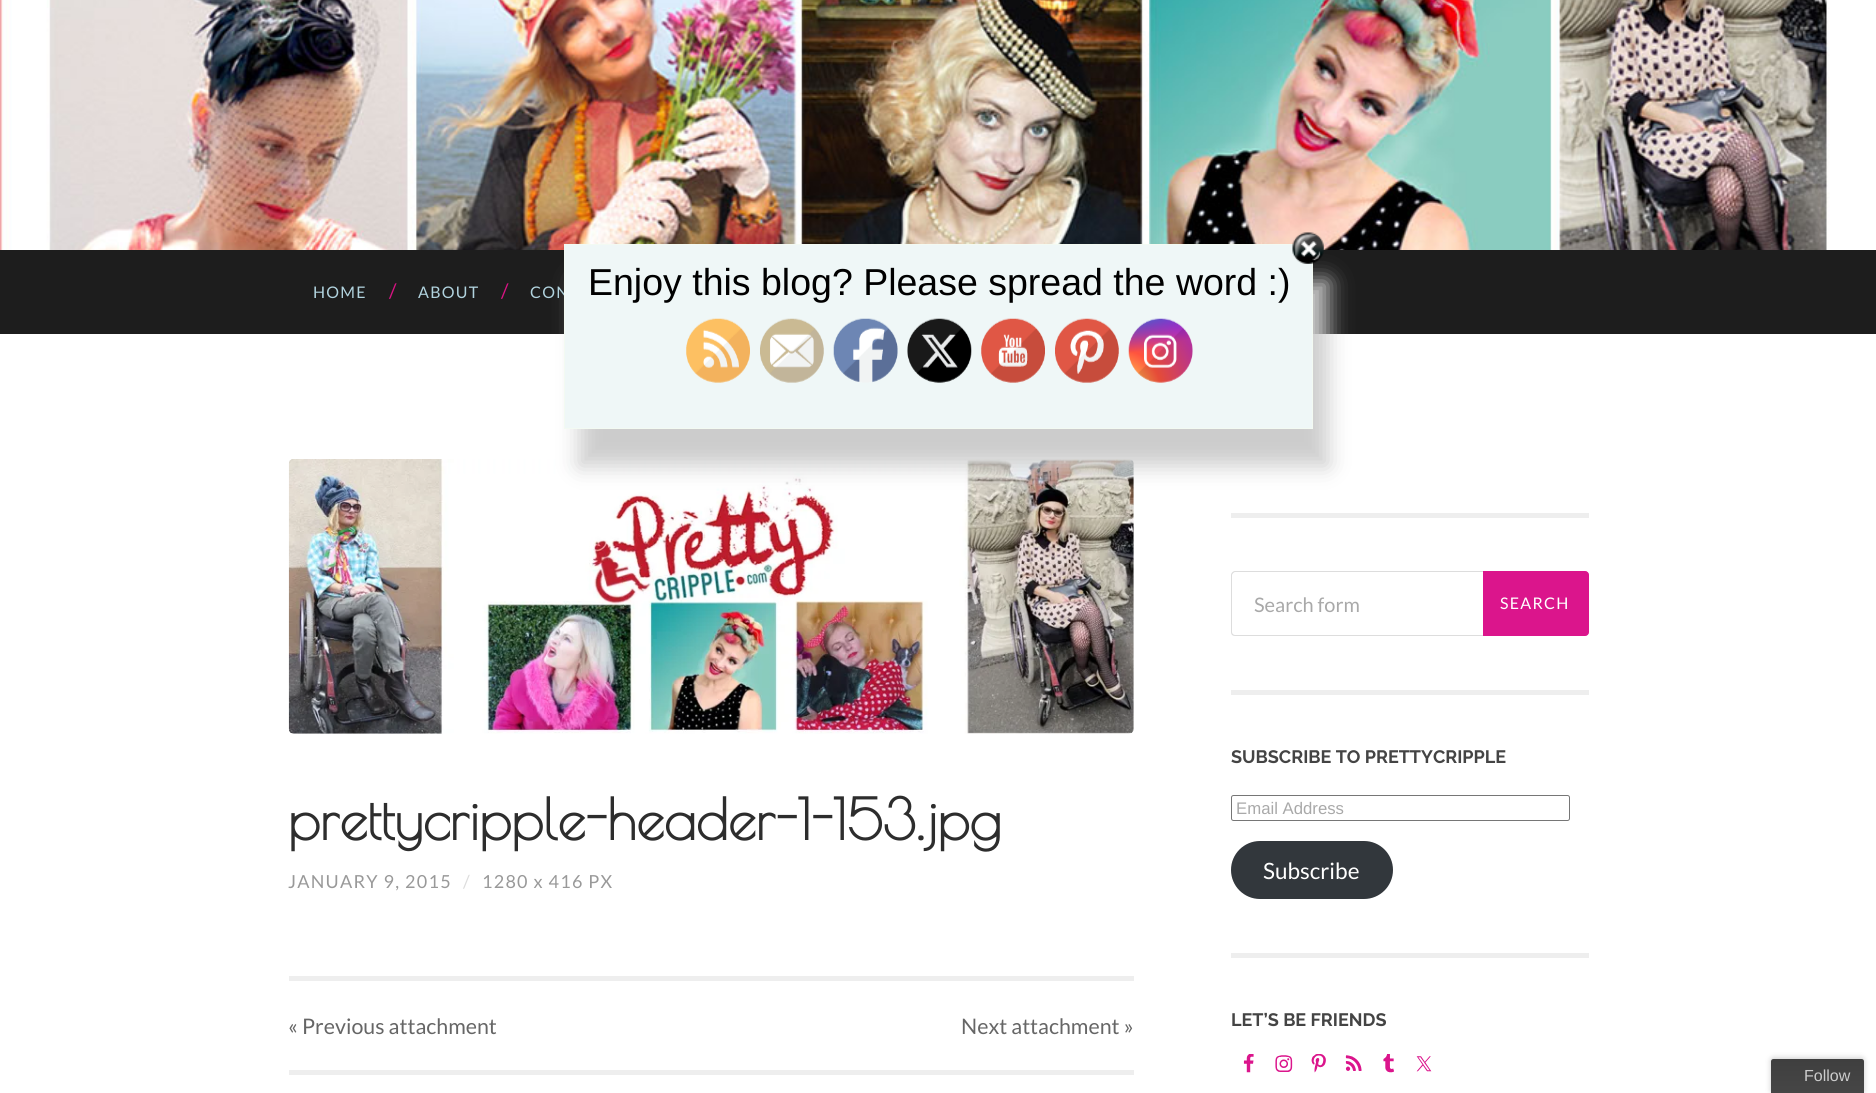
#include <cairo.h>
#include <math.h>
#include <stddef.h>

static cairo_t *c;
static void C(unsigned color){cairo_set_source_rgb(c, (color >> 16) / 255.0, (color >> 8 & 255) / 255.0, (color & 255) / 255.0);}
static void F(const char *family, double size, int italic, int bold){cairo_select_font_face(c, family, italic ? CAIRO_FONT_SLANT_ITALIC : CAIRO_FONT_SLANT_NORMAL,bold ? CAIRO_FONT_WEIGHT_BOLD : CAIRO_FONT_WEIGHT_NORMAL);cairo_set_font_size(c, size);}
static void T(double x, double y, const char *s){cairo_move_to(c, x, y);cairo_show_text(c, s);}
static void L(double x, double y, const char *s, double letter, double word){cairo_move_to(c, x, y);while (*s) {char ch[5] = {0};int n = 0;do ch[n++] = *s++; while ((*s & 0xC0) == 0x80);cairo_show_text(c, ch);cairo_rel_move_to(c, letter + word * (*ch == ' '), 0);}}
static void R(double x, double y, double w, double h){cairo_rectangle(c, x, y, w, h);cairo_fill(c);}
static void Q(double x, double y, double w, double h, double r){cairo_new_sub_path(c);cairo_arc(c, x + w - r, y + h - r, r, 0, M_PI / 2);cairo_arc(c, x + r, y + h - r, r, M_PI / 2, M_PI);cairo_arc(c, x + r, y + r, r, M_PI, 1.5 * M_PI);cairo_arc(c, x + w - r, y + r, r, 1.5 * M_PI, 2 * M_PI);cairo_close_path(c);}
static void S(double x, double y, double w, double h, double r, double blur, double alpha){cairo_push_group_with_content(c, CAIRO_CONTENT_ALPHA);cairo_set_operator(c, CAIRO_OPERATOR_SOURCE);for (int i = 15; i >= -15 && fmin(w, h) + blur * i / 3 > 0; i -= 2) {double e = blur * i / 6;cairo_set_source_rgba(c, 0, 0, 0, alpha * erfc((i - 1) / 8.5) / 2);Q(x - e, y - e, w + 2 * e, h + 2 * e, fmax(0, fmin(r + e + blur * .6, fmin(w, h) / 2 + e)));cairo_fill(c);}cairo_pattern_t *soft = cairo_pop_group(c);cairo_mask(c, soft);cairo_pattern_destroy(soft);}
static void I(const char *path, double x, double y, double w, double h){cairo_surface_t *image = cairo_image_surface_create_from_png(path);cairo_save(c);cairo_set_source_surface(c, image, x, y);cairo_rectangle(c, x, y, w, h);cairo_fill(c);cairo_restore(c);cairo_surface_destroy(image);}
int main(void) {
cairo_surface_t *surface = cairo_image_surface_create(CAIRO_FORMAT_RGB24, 1876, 1093);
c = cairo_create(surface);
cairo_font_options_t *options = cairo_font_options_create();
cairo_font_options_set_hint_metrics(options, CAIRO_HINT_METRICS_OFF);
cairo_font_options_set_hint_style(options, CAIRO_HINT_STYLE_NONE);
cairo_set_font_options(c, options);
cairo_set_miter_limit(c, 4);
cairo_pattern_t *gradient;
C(0xffffff);
cairo_paint(c);
I("9.png",0,0,1876,250);
C(0x1d1d1d);
R(0,250,1876,84);
I("10.png",288,459,846,275);
C(0xcccccc);
S(579,281,749,185,0,11,1);
F("Lato",16,0,0);
C(0xb1d3de);
L(530,298,"CON",1.25,0);
C(0xeff7f7);
cairo_rectangle(c,564.5,244.5,748,184);
cairo_fill_preserve(c);
C(0xf3faf2);
cairo_set_line_width(c,1);
cairo_stroke(c);
I("1.png",1292,232,32,32);
F("Liberation Sans",37.5,0,0);
C(0x000000);
T(588,295,"Enjoy this blog? Please spread the word :)");
I("2.png",686,318,64,65);
I("3.png",760,318,64,65);
I("4.png",833,318,65,65);
I("5.png",907,318,65,65);
I("6.png",981,318,64,65);
I("7.png",1055,318,64,65);
I("8.png",1128,318,65,65);
F("Lato",16,0,0);
C(0xb1d3de);
L(313,298,"HOME",1.25,0);
F("Lato",20,0,0);
C(0xd91383);
T(389,298,"/");
F("Lato",16,0,0);
C(0xb1d3de);
L(418,298,"ABOUT",1.25,0);
F("Lato",20,0,0);
C(0xd91383);
T(501,298,"/");
F("Poiret One",56.25,0,1);
C(0x2d2d2d);
T(288,840,"prettycripple-header-1-153.jpg");
F("Lato",18,0,0);
C(0x999999);
L(288,888,"JANUARY 9, 2015",1.25,0);
C(0xdddddd);
L(463,888,"/",1.25,0);
C(0x999999);
L(482,888,"1280 x 416 PX",1.25,0);
C(0xeeeeee);
R(289,976,845,5);
R(289,1070,845,5);
F("Lato",21.4,0,0);
C(0x666666);
T(288,1034,"« Previous attachment");
T(961,1034,"Next attachment »");
C(0xeeeeee);
R(1231,513,358,5);
R(1231,690,358,5);
C(0xdddddd);
cairo_set_fill_rule(c,CAIRO_FILL_RULE_EVEN_ODD);
cairo_new_path(c);
cairo_move_to(c,1235,571);
cairo_line_to(c,1585,571);
cairo_line_to(c,1585,636);
cairo_line_to(c,1235,636);
cairo_curve_to(c,1233,636,1231,635,1231,632);
cairo_line_to(c,1231,575);
cairo_curve_to(c,1231,573,1233,571,1235,571);
cairo_close_path(c);
cairo_move_to(c,1235,572);
cairo_line_to(c,1585,572);
cairo_line_to(c,1585,635);
cairo_line_to(c,1235,635);
cairo_curve_to(c,1234,635,1232,634,1232,632);
cairo_line_to(c,1232,575);
cairo_curve_to(c,1232,574,1234,572,1235,572);
cairo_close_path(c);
cairo_fill(c);
F("Lato",20,0,0);
C(0xa9a9a9);
T(1254,612,"Search form");
C(0xdb158c);
cairo_new_path(c);
cairo_move_to(c,1483.5,571.5);
cairo_line_to(c,1585,571.5);
cairo_curve_to(c,1587,571.5,1588.5,573,1588.5,575);
cairo_line_to(c,1588.5,632);
cairo_curve_to(c,1588.5,634,1587,635.5,1585,635.5);
cairo_line_to(c,1483.5,635.5);
cairo_close_path(c);
cairo_fill_preserve(c);
cairo_stroke(c);
F("Lato",16,0,0);
C(0xffffff);
L(1500,609,"SEARCH",1.25,0);
C(0xeeeeee);
R(1231,953,358,5);
F("Raleway",18,0,1);
C(0x444444);
T(1231,763,"SUBSCRIBE TO PRETTYCRIPPLE");
Q(1231.5,795.5,338,25,2);
C(0x767676);
cairo_stroke(c);
F("Liberation Sans",16.75,0,0);
C(0xa9a9a9);
T(1236,814,"Email Address");
C(0x32373c);
Q(1231,841,162,58,29);
cairo_fill(c);
F("Lato",22.5,0,0);
C(0xffffff);
T(1263,879,"Subscribe");
F("Raleway",18,0,1);
C(0x444444);
T(1231,1026,"LET’S BE FRIENDS");
I("11.png",1243,1054,11,19);
I("12.png",1275,1055,18,17);
I("13.png",1311,1054,15,19);
I("14.png",1345,1055,17,16);
I("15.png",1383,1054,11,19);
I("16.png",1416,1056,16,16);
C(0x000000);
S(1771,1058,93,35,2.5,3,.2);
gradient = cairo_pattern_create_linear(1771,1059,1771,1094);
cairo_pattern_add_color_stop_rgba(gradient,0,0.247,0.247,0.247,1);
cairo_pattern_add_color_stop_rgba(gradient,1,0.275,0.275,0.275,1);
cairo_set_source(c,gradient);
cairo_pattern_destroy(gradient);
cairo_new_path(c);
cairo_move_to(c,1773.5,1059);
cairo_line_to(c,1861.5,1059);
cairo_curve_to(c,1863,1059,1864,1060,1864,1061.5);
cairo_line_to(c,1864,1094);
cairo_line_to(c,1771,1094);
cairo_line_to(c,1771,1061.5);
cairo_curve_to(c,1771,1060,1772,1059,1773.5,1059);
cairo_close_path(c);
cairo_fill(c);
F("Liberation Sans",16,0,0);
C(0xcccccc);
T(1804,1081,"Follow");
cairo_surface_write_to_png(surface, "o.png");
cairo_font_options_destroy(options);
cairo_destroy(c);
cairo_surface_destroy(surface);
return 0;
}
